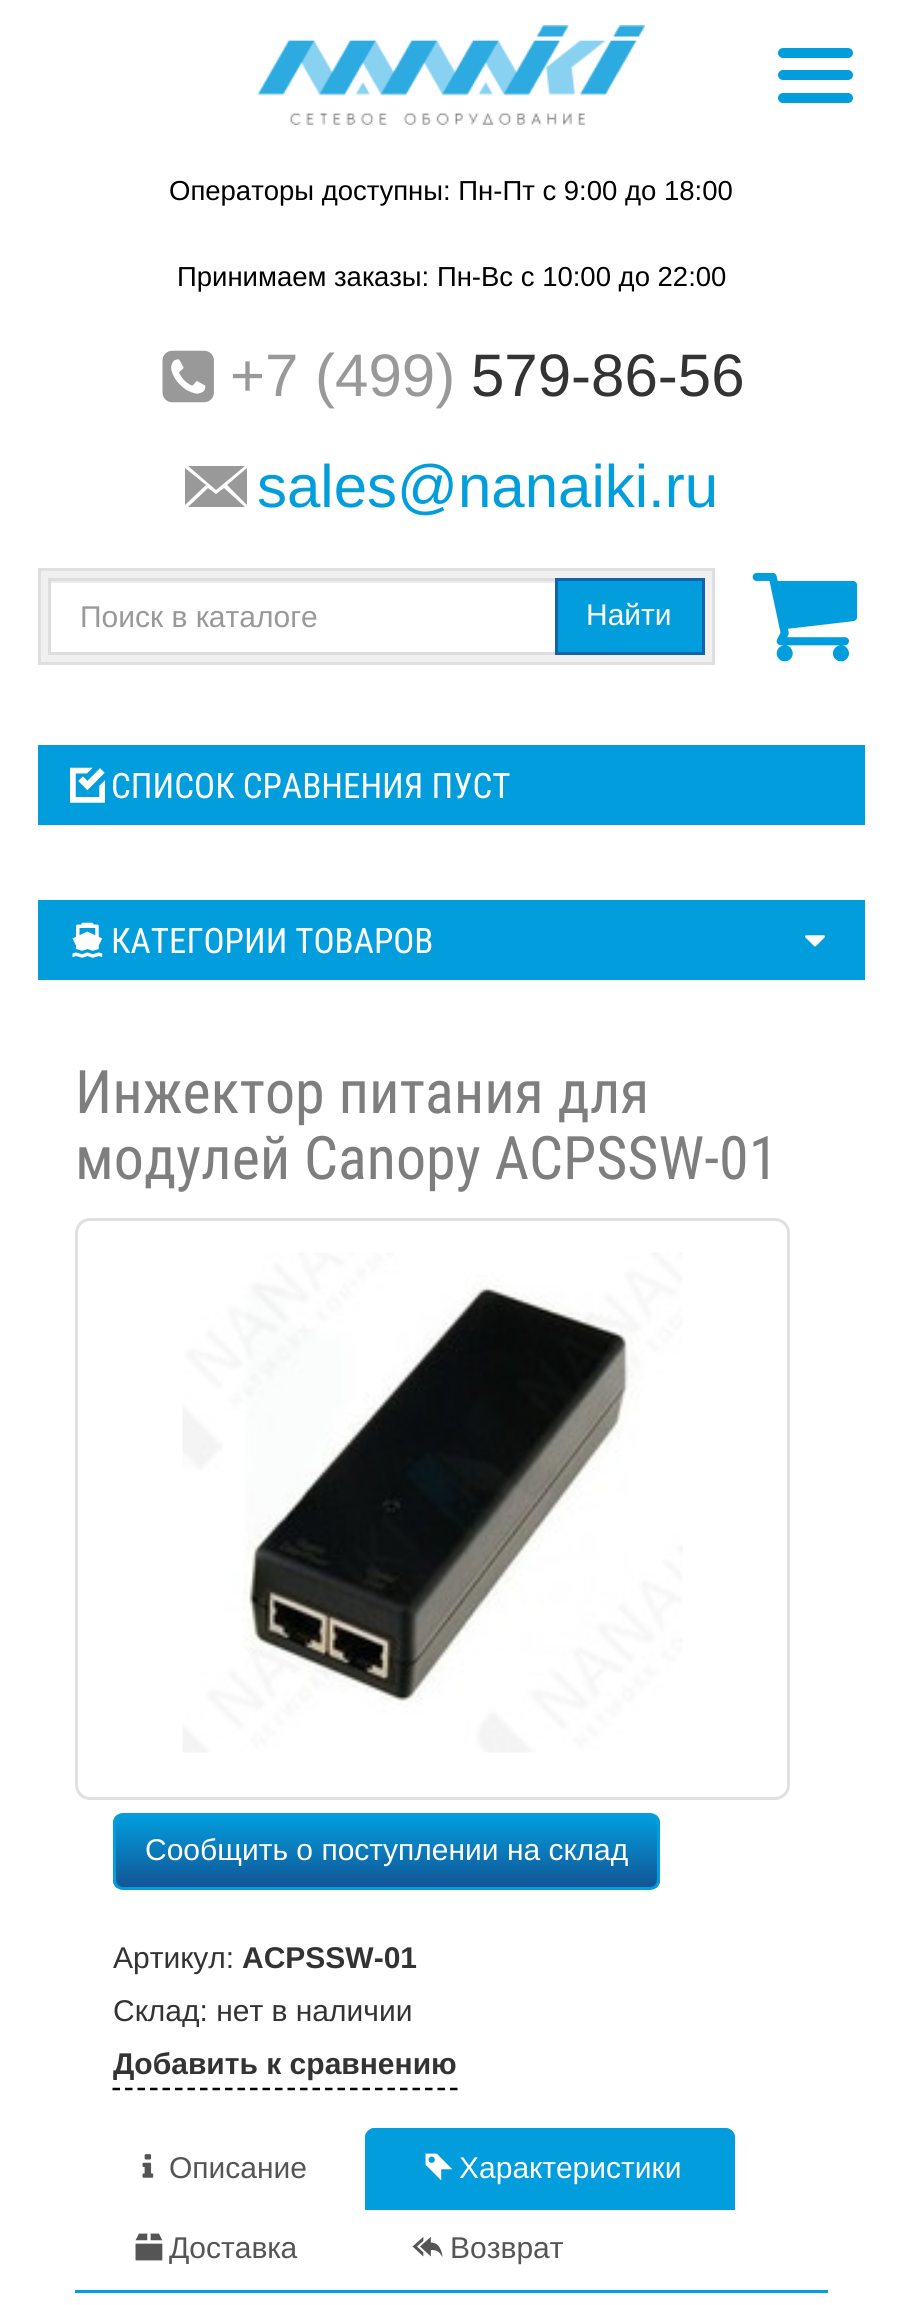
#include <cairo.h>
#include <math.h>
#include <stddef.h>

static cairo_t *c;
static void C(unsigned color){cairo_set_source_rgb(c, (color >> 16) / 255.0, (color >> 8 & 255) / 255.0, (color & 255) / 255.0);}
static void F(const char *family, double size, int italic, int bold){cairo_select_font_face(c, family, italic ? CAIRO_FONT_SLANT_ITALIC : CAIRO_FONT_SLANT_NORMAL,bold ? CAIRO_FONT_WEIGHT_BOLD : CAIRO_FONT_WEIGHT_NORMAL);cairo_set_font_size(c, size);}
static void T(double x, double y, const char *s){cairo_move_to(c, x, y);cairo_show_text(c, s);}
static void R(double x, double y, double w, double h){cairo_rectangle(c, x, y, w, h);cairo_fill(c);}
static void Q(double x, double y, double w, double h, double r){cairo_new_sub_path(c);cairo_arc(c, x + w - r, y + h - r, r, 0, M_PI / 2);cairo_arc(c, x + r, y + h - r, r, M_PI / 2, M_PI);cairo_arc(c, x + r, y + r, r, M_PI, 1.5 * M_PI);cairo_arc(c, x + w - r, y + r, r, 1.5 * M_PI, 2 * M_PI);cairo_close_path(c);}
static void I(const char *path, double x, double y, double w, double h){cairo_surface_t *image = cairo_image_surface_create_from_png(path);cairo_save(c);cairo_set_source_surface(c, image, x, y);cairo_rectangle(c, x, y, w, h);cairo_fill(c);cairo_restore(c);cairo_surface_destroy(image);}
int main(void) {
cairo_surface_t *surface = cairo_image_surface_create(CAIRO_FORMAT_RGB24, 901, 2305);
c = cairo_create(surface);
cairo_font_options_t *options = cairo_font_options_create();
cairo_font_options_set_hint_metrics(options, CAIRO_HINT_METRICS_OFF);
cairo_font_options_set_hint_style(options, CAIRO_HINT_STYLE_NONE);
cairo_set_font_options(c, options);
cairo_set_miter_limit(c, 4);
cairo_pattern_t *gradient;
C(0xffffff);
cairo_paint(c);
I("1.png",257,25,388,100);
C(0x029ddd);
Q(778,48,75,10,5);
cairo_fill(c);
Q(778,70,75,10,5);
cairo_fill(c);
Q(778,93,75,10,5);
cairo_fill(c);
F("Liberation Sans",27.5,0,0);
C(0x000000);
T(169,200,"Операторы доступны: Пн-Пт с 9:00 до 18:00");
T(177,286,"Принимаем заказы: Пн-Вс с 10:00 до 22:00");
I("2.png",162,350,52,53);
F("Liberation Sans",60,0,0);
C(0x999999);
T(230,396,"+7 (499)");
C(0x333333);
T(471,396,"579-86-56");
C(0x999999);
cairo_new_path(c);
cairo_move_to(c,185,504);
cairo_line_to(c,185,468);
cairo_line_to(c,206,485);
cairo_line_to(c,185,505);
cairo_close_path(c);
cairo_move_to(c,188,466);
cairo_line_to(c,245,466);
cairo_line_to(c,216,490);
cairo_close_path(c);
cairo_move_to(c,188,507);
cairo_line_to(c,208,488);
cairo_line_to(c,216,494);
cairo_line_to(c,224,488);
cairo_line_to(c,245,507);
cairo_close_path(c);
cairo_move_to(c,227,485);
cairo_line_to(c,247,468);
cairo_line_to(c,247,505);
cairo_close_path(c);
cairo_fill(c);
C(0x029ddd);
T(257,507,"sales@nanaiki.ru");
C(0xf0f0f0);
cairo_rectangle(c,39.5,569.5,674,94);
cairo_fill_preserve(c);
C(0xdfdfdf);
cairo_set_line_width(c,3);
cairo_stroke(c);
C(0xffffff);
R(51,583,504,69);
C(0xececec);
R(50,581,505,2);
cairo_rectangle(c,49.5,579.5,507,74);
C(0xdddddd);
cairo_stroke(c);
F("Liberation Sans",30,0,0);
C(0x999999);
T(80,627,"Поиск в каталоге");
C(0x029ddd);
cairo_rectangle(c,556.5,579.5,147,74);
cairo_fill_preserve(c);
C(0x1462ac);
cairo_stroke(c);
C(0xffffff);
T(586,625,"Найти");
I("3.png",752,572,106,90);
C(0x029ddd);
R(38,745,827,80);
I("4.png",70,767,35,36);
F("Roboto Condensed",35,0,0);
C(0xffffff);
T(111,798,"СПИСОК СРАВНЕНИЯ ПУСТ");
C(0x029ddd);
R(38,900,827,80);
I("5.png",72,922,31,36);
C(0xffffff);
T(111,953,"КАТЕГОРИИ ТОВАРОВ");
I("6.png",805,935,20,12);
F("Roboto Condensed",60,0,0);
C(0x7e7e7e);
T(75,1113,"Инжектор питания для");
T(75,1179,"модулей Canopy ACPSSW-01");
Q(76.5,1219.5,712,579,13.5);
C(0xe0e0e0);
cairo_stroke(c);
I("7.png",182,1252,501,501);
cairo_save(c);
Q(113,1813,547,77,10);
cairo_clip(c);
gradient = cairo_pattern_create_linear(386,1815,386,1888);
cairo_pattern_add_color_stop_rgba(gradient,0,0.008,0.616,0.867,1);
cairo_pattern_add_color_stop_rgba(gradient,1,0.071,0.333,0.584,1);
cairo_set_source(c,gradient);
cairo_pattern_destroy(gradient);
R(113,1815,547,73);
cairo_restore(c);
Q(114.5,1814.5,544,74,8.5);
C(0x029ddd);
cairo_stroke(c);
F("Liberation Sans",30,0,0);
C(0xffffff);
T(145,1860,"Сообщить о поступлении на склад");
C(0x333333);
T(113,1968,"Артикул:");
F("Liberation Sans",30,0,1);
T(242,1968,"ACPSSW-01");
F("Liberation Sans",30,0,0);
T(113,2021,"Склад: нет в наличии");
cairo_new_path(c);
cairo_move_to(c,112.5,2089);
cairo_line_to(c,457.5,2089);
C(0x000000);
cairo_set_line_width(c,2.5);
cairo_set_dash(c,(double[]){7.5,5},2,0);
cairo_stroke(c);
F("Liberation Sans",30,0,1);
C(0x333333);
T(113,2074,"Добавить к сравнению");
C(0x029ddd);
R(75,2290,753,3);
I("8.png",142,2154,12,24);
F("Liberation Sans",30,0,0);
C(0x555555);
T(169,2178,"Описание");
C(0x029ddd);
cairo_new_path(c);
cairo_move_to(c,375,2128);
cairo_line_to(c,725,2128);
cairo_curve_to(c,730.5,2128,735,2132.5,735,2138);
cairo_line_to(c,735,2210);
cairo_line_to(c,365,2210);
cairo_line_to(c,365,2138);
cairo_curve_to(c,365,2132.5,369.5,2128,375,2128);
cairo_close_path(c);
cairo_fill(c);
cairo_new_path(c);
cairo_move_to(c,375,2128);
cairo_curve_to(c,372,2128,370,2129,368,2131);
cairo_line_to(c,370,2132);
cairo_curve_to(c,371,2131,373,2130,375,2130);
cairo_line_to(c,725,2130);
cairo_curve_to(c,727,2130,729,2131,730,2132);
cairo_line_to(c,732,2131);
cairo_curve_to(c,730,2129,728,2128,725,2128);
cairo_close_path(c);
cairo_fill(c);
cairo_new_path(c);
cairo_move_to(c,732,2131);
cairo_curve_to(c,734,2132,735,2135,735,2138);
cairo_line_to(c,735,2210);
cairo_line_to(c,732,2207);
cairo_line_to(c,732,2138);
cairo_curve_to(c,732,2136,731,2134,730,2132);
cairo_close_path(c);
cairo_fill(c);
cairo_new_path(c);
cairo_move_to(c,365,2210);
cairo_line_to(c,368,2207);
cairo_line_to(c,368,2138);
cairo_curve_to(c,368,2136,369,2134,370,2132);
cairo_line_to(c,368,2131);
cairo_curve_to(c,366,2132,365,2135,365,2138);
cairo_close_path(c);
cairo_fill(c);
I("9.png",425,2153,28,28);
C(0xffffff);
T(459,2178,"Характеристики");
I("10.png",135,2233,28,28);
C(0x555555);
T(169,2258,"Доставка");
I("11.png",412,2237,31,20);
T(450,2258,"Возврат");
cairo_surface_write_to_png(surface, "o.png");
cairo_font_options_destroy(options);
cairo_destroy(c);
cairo_surface_destroy(surface);
return 0;
}
